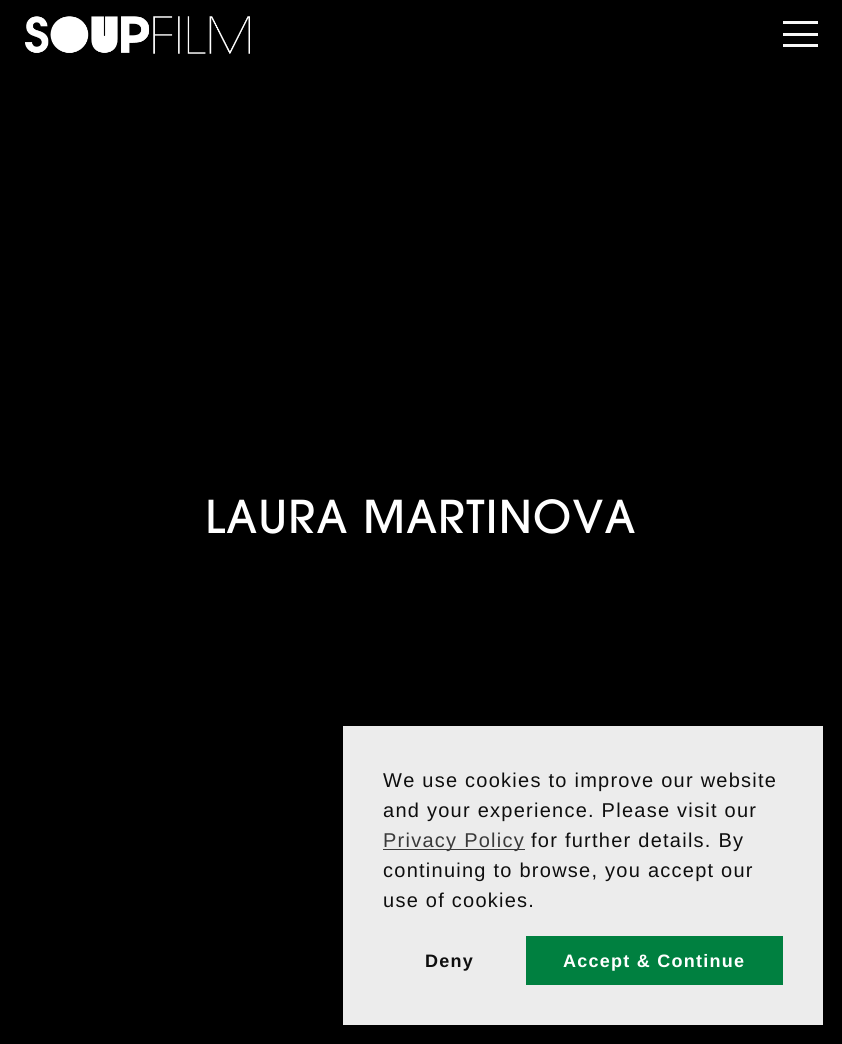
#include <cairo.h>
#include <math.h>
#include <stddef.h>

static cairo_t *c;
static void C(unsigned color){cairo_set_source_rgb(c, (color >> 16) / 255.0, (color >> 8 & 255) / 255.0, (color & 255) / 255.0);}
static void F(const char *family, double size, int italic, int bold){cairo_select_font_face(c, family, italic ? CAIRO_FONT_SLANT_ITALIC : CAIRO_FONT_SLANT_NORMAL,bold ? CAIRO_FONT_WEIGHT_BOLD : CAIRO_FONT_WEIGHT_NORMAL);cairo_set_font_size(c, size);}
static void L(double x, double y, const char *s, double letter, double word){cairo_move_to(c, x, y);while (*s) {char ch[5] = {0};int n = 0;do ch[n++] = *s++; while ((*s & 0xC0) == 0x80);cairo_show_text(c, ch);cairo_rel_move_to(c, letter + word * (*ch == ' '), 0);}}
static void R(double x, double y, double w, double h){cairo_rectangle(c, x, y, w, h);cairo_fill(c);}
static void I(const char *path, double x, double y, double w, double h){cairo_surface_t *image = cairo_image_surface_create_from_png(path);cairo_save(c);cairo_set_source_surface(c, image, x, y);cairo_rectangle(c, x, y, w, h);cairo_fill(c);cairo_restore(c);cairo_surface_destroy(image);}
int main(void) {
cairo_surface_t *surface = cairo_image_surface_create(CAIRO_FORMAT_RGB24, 842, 1044);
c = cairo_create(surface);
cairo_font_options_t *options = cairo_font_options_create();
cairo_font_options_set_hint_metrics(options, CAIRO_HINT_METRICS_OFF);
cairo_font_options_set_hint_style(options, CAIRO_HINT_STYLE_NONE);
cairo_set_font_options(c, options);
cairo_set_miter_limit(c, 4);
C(0x000000);
cairo_paint(c);
I("1.png",25,16,225,38);
C(0xf7f7f7);
R(783,21,35,3);
R(783,33,35,3);
R(783,44,35,3);
F("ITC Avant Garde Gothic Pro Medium",45,0,0);
C(0xffffff);
L(205,533,"LAURA MARTINOVA",1.25,0);
C(0xececec);
R(343,726,480,299);
F("Liberation Sans",20,0,0);
C(0x0e0e0e);
L(383,787,"We use cookies to improve our website",1.25,0);
L(383,817,"and your experience. Please visit our",1.25,0);
C(0x3a3a3a);
R(383,849,142,1);
L(383,847,"Privacy Policy",1.25,0);
C(0x0e0e0e);
L(531,847,"for further details. By",1.25,0);
L(383,877,"continuing to browse, you accept our",1.25,0);
L(383,907,"use of cookies.",1.25,0);
F("Liberation Sans",18,0,1);
L(425,967,"Deny",1.25,0);
C(0x008040);
R(526,936,257,49);
C(0xffffff);
L(563,967,"Accept & Continue",1.25,0);
cairo_surface_write_to_png(surface, "o.png");
cairo_font_options_destroy(options);
cairo_destroy(c);
cairo_surface_destroy(surface);
return 0;
}
